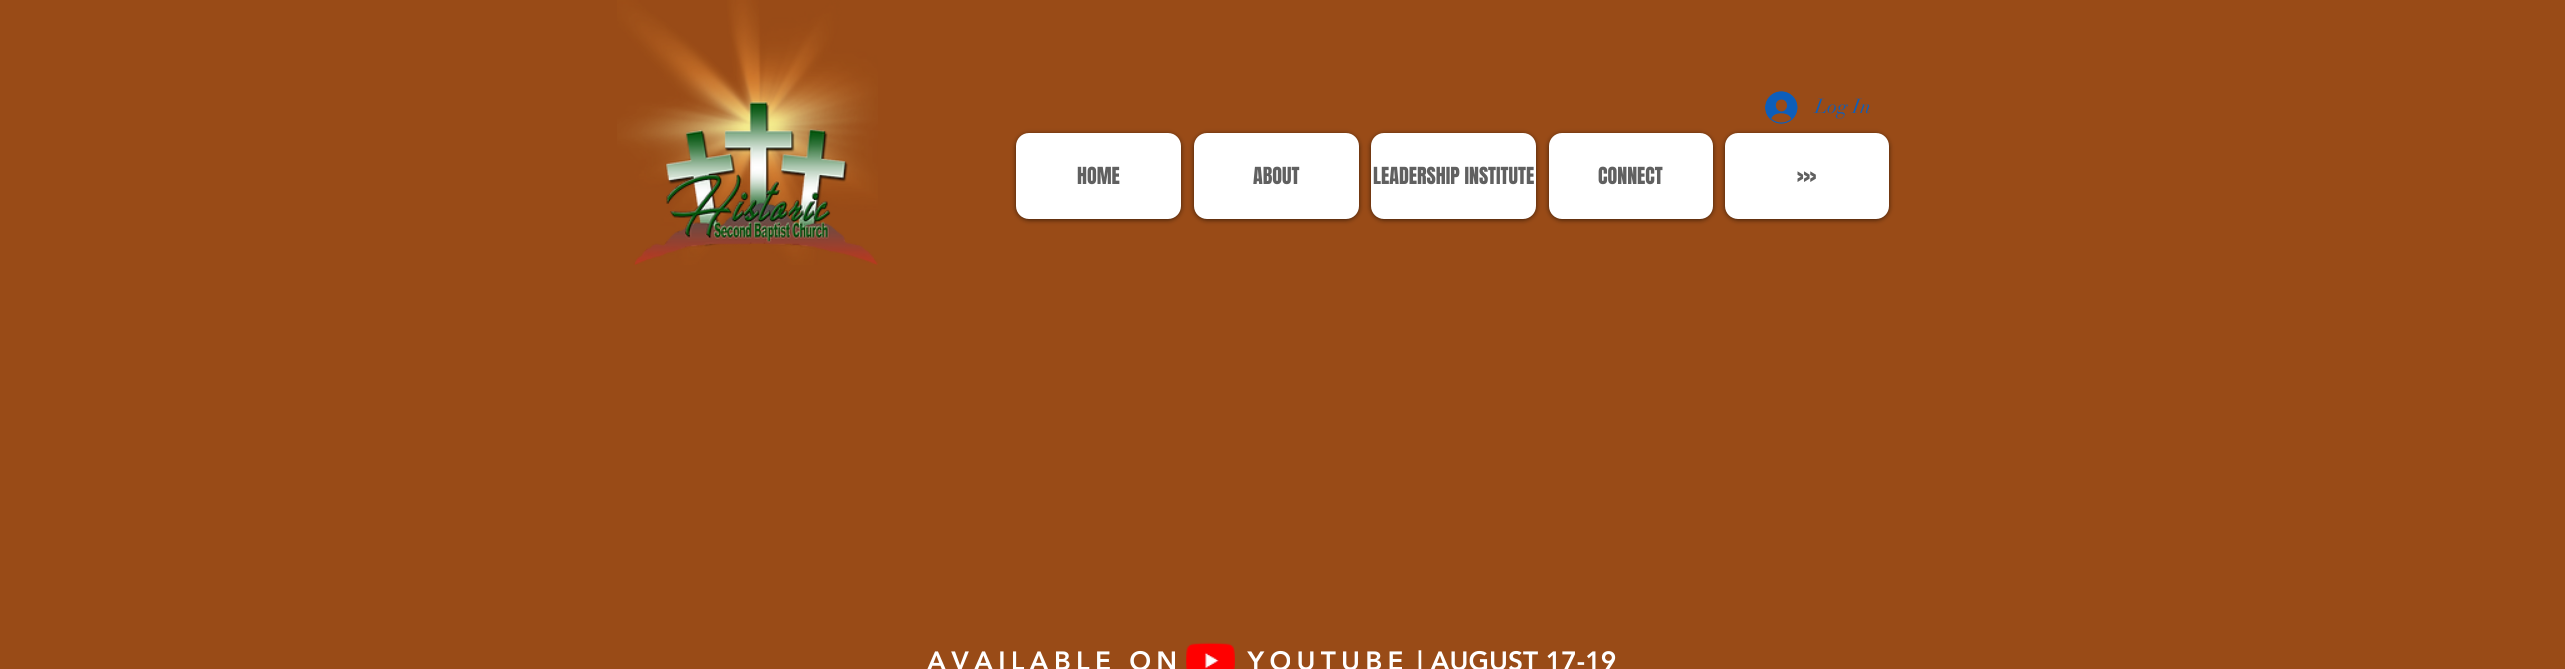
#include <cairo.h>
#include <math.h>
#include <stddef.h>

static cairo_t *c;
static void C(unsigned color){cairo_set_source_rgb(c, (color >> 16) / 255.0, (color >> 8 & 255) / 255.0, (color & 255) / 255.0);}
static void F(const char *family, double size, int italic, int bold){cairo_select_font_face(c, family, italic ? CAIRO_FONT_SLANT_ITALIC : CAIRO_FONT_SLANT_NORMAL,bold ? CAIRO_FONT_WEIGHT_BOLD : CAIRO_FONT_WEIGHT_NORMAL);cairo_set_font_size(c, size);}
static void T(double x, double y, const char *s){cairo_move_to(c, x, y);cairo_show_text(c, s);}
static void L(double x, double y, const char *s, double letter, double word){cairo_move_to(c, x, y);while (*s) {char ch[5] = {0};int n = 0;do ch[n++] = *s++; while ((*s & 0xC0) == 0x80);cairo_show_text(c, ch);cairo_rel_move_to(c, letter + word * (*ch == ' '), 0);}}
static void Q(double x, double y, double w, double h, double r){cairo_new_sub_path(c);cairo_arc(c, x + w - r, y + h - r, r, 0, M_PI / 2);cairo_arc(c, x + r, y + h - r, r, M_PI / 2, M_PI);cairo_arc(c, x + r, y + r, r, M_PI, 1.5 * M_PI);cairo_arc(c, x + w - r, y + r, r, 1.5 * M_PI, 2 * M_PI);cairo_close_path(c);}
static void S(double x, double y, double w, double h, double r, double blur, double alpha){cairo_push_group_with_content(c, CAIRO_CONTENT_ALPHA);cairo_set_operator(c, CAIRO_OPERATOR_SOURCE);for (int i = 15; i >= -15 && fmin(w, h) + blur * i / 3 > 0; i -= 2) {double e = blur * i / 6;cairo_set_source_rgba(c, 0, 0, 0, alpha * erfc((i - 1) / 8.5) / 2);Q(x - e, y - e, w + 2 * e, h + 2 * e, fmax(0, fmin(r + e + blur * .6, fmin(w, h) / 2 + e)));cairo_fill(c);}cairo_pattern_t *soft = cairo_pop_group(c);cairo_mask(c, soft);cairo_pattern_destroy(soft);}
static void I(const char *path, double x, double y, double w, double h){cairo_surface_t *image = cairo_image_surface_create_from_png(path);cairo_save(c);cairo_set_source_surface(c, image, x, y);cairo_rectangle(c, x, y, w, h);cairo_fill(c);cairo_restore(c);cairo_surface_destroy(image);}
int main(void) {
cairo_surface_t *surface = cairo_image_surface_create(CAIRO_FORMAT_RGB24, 2565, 669);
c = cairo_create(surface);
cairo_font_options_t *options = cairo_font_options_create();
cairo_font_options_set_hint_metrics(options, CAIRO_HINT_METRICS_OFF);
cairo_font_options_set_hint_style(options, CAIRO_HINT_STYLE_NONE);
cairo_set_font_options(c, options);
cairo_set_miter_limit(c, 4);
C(0x994b17);
cairo_paint(c);
I("1.png",617,0,261,265);
I("2.png",1765,91,33,33);
F("didot",20,0,0);
C(0x0d5eba);
T(1815,113,"Log In");
C(0x000000);
S(1016,134,165,86,13,2.5,.6);
C(0xffffff);
Q(1016,133,165,86,13);
cairo_fill(c);
F("Anton",20,0,0);
C(0x606060);
T(1077,184,"HOME");
C(0x000000);
S(1194,134,165,86,13,2.5,.6);
C(0xffffff);
Q(1194,133,165,86,13);
cairo_fill(c);
C(0x606060);
T(1253,184,"ABOUT");
C(0x000000);
S(1371,134,165,86,13,2.5,.6);
C(0xffffff);
Q(1371,133,165,86,13);
cairo_fill(c);
C(0x606060);
T(1373,184,"LEADERSHIP INSTITUTE");
C(0x000000);
S(1549,134,164,86,13,2.5,.6);
C(0xffffff);
Q(1549,133,164,86,13);
cairo_fill(c);
C(0x606060);
T(1598,184,"CONNECT");
C(0x000000);
S(1725,134,164,86,13,2.5,.6);
C(0xffffff);
Q(1725,133,164,86,13);
cairo_fill(c);
C(0x606060);
T(1797,184,">>>");
I("3.png",1186,642,49,27);
F("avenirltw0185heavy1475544 Black",26.25,0,0);
C(0xffffff);
L(927,670,"AVAILABLE ON     YOUTUBE",5.25,0);
T(1417,670,"| AUGUST 17-19");
cairo_surface_write_to_png(surface, "o.png");
cairo_font_options_destroy(options);
cairo_destroy(c);
cairo_surface_destroy(surface);
return 0;
}
